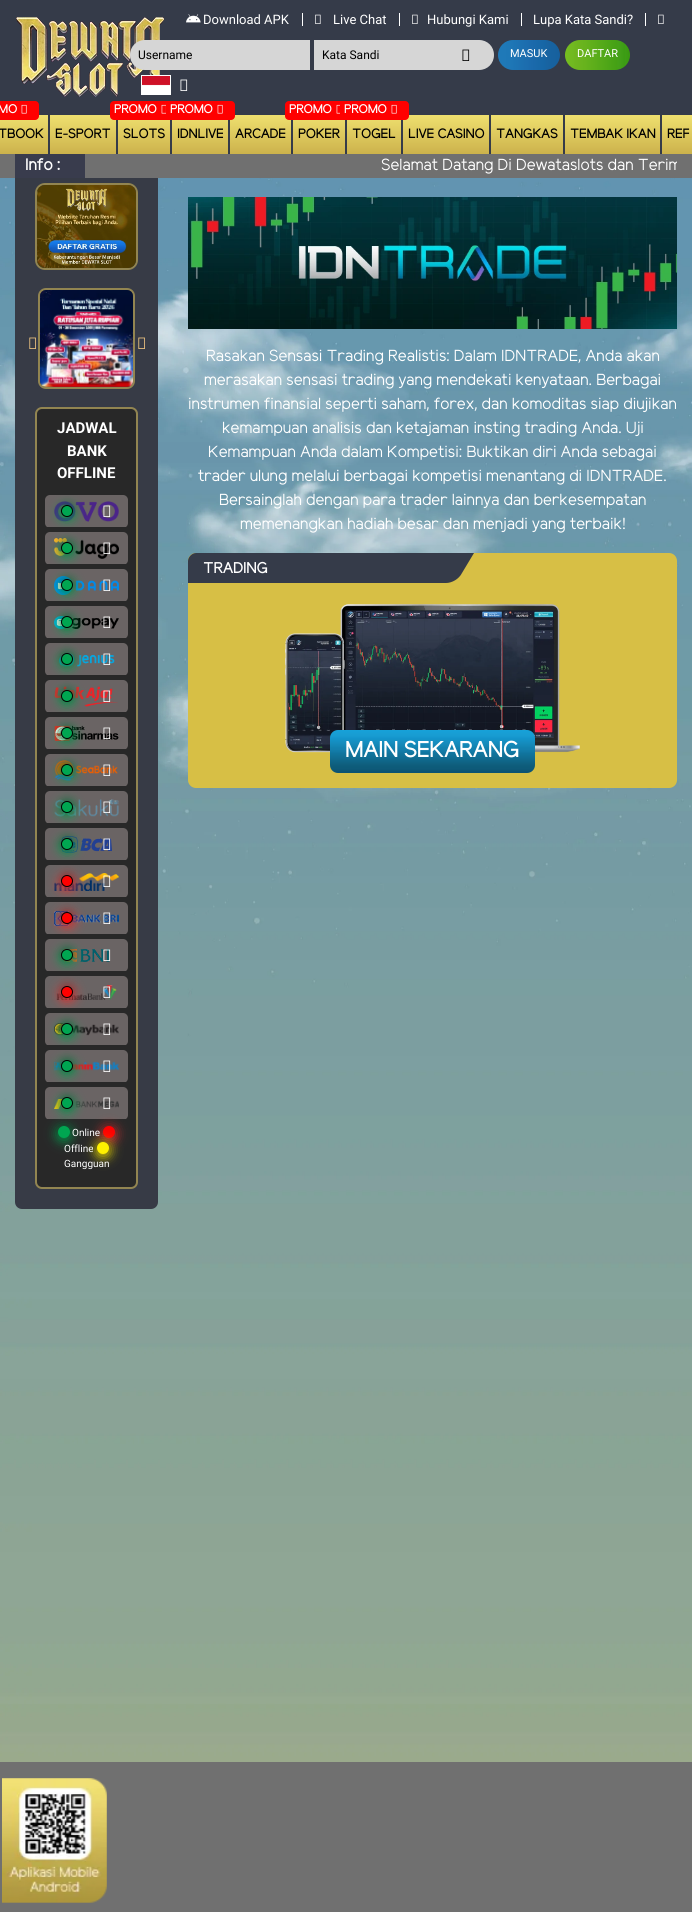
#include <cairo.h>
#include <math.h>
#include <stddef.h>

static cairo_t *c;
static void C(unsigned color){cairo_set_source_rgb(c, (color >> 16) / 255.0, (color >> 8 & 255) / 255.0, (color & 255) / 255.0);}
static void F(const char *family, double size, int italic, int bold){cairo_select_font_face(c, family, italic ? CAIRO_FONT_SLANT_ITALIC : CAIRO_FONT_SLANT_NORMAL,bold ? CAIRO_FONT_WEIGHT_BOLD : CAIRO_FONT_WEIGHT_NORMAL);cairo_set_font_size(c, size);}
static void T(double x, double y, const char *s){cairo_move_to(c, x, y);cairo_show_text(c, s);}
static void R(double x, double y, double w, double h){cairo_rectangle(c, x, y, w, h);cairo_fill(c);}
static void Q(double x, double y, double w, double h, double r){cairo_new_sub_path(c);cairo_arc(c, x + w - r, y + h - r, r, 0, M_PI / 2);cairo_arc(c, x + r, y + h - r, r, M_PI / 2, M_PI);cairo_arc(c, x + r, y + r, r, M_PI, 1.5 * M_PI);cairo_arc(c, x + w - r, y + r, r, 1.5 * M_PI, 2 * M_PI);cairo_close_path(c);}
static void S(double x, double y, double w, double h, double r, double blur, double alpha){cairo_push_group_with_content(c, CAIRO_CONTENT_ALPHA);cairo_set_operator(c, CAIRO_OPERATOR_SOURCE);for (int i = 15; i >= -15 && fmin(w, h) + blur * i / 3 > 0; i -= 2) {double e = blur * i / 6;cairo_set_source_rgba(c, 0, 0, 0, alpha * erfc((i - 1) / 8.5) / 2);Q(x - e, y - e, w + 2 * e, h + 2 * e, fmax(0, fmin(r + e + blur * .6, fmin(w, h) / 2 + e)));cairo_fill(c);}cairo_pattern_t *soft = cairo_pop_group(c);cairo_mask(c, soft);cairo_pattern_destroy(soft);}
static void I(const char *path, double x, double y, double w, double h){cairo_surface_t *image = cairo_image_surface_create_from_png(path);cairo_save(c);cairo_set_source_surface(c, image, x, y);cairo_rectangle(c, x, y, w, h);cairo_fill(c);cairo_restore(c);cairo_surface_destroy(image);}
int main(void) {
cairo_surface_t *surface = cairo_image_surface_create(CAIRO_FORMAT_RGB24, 692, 1912);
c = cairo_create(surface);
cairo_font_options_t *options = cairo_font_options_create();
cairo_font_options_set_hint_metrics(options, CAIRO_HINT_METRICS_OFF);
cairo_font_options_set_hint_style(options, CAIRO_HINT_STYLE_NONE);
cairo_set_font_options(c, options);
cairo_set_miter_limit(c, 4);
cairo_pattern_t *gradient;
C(0x707070);
cairo_paint(c);
C(0x353b49);
R(0,0,692,115);
I("1.png",16,17,148,80);
I("2.png",186,14,15,9);
F("Roboto",13,0,0);
C(0xffffff);
T(203,24,"Download APK");
R(302,13,1,13);
I("3.png",315,14,6,10);
T(333,24,"Live Chat");
R(399,13,1,13);
I("3.png",412,14,6,10);
T(427,24,"Hubungi Kami");
R(521,13,1,13);
T(533,24,"Lupa Kata Sandi?");
R(645,13,1,13);
I("3.png",658,14,6,10);
C(0xd6d6d6);
cairo_new_path(c);
cairo_move_to(c,145,40);
cairo_line_to(c,310,40);
cairo_line_to(c,310,70);
cairo_line_to(c,145,70);
cairo_curve_to(c,136.5,70,130,63.5,130,55);
cairo_curve_to(c,130,46.5,136.5,40,145,40);
cairo_close_path(c);
cairo_fill(c);
F("Roboto",12,0,0);
C(0x000000);
T(138,59,"Username");
C(0xd6d6d6);
cairo_new_path(c);
cairo_move_to(c,314,40);
cairo_line_to(c,479,40);
cairo_curve_to(c,487.5,40,494,46.5,494,55);
cairo_curve_to(c,494,63.5,487.5,70,479,70);
cairo_line_to(c,314,70);
cairo_close_path(c);
cairo_fill(c);
C(0x000000);
T(322,59,"Kata Sandi");
I("4.png",462,49,8,12);
gradient = cairo_pattern_create_linear(498,55,560,55);
cairo_pattern_add_color_stop_rgba(gradient,0,0.125,0.478,0.725,1);
cairo_pattern_add_color_stop_rgba(gradient,.17,0.118,0.471,0.718,1);
cairo_pattern_add_color_stop_rgba(gradient,.54,0.106,0.416,0.675,1);
cairo_pattern_add_color_stop_rgba(gradient,.76,0.086,0.4,0.647,1);
cairo_pattern_add_color_stop_rgba(gradient,.78,0.094,0.392,0.635,1);
cairo_pattern_add_color_stop_rgba(gradient,1,0.086,0.376,0.616,1);
cairo_set_source(c,gradient);
cairo_pattern_destroy(gradient);
Q(498,40,62,30,15);
cairo_fill(c);
F("Roboto",11,0,0);
C(0xffffff);
T(510,57,"MASUK");
gradient = cairo_pattern_create_linear(565,55,630,55);
cairo_pattern_add_color_stop_rgba(gradient,0,0.467,0.741,0.122,1);
cairo_pattern_add_color_stop_rgba(gradient,.13,0.439,0.725,0.129,1);
cairo_pattern_add_color_stop_rgba(gradient,.15,0.439,0.714,0.122,1);
cairo_pattern_add_color_stop_rgba(gradient,.31,0.404,0.702,0.114,1);
cairo_pattern_add_color_stop_rgba(gradient,.8,0.267,0.631,0.082,1);
cairo_pattern_add_color_stop_rgba(gradient,.81,0.271,0.631,0.094,1);
cairo_pattern_add_color_stop_rgba(gradient,.85,0.259,0.627,0.094,1);
cairo_pattern_add_color_stop_rgba(gradient,.91,0.235,0.612,0.078,1);
cairo_pattern_add_color_stop_rgba(gradient,.94,0.239,0.616,0.082,1);
cairo_pattern_add_color_stop_rgba(gradient,.98,0.224,0.6,0.067,1);
cairo_pattern_add_color_stop_rgba(gradient,1,0.231,0.608,0.075,1);
cairo_set_source(c,gradient);
cairo_pattern_destroy(gradient);
Q(565,40,65,30,15);
cairo_fill(c);
C(0xffffff);
T(577,57,"DAFTAR");
cairo_rectangle(c,141.5,75.5,29,19);
cairo_set_line_width(c,1);
cairo_stroke(c);
I("5.png",142,76,28,18);
I("6.png",180,79,8,12);
gradient = cairo_pattern_create_linear(346,115,346,154);
cairo_pattern_add_color_stop_rgba(gradient,0,0.937,0.878,0.435,1);
cairo_pattern_add_color_stop_rgba(gradient,1,0.8,0.698,0.298,1);
cairo_set_source(c,gradient);
cairo_pattern_destroy(gradient);
R(0,115,692,39);
C(0x353b49);
R(48,115,2,39);
C(0xff0000);
Q(-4,101,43,19,4);
cairo_fill(c);
F("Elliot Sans",12,0,1);
C(0xffffff);
T(-2,113,"MO");
I("7.png",21,104,6,10);
F("Elliot Sans",13,0,1);
C(0x000000);
T(-2,138,"TBOOK");
C(0x353b49);
R(116,115,2,39);
C(0x000000);
T(55,138,"E-SPORT");
C(0x353b49);
R(170,115,2,39);
C(0xff0000);
Q(110,101,69,19,4);
cairo_fill(c);
F("Elliot Sans",12,0,1);
C(0xffffff);
T(114,113,"PROMO");
I("7.png",161,104,6,10);
F("Elliot Sans",13,0,1);
C(0x000000);
T(123,138,"SLOTS");
C(0x353b49);
R(228,115,2,39);
C(0xff0000);
Q(166,101,69,19,4);
cairo_fill(c);
F("Elliot Sans",12,0,1);
C(0xffffff);
T(170,113,"PROMO");
I("7.png",217,104,6,10);
F("Elliot Sans",13,0,1);
C(0x000000);
T(177,138,"IDNLIVE");
C(0x353b49);
R(291,115,2,39);
C(0x000000);
T(235,138,"ARCADE");
C(0x353b49);
R(345,115,2,39);
C(0xff0000);
Q(285,101,69,19,4);
cairo_fill(c);
F("Elliot Sans",12,0,1);
C(0xffffff);
T(289,113,"PROMO");
I("8.png",336,104,5,10);
F("Elliot Sans",13,0,1);
C(0x000000);
T(298,138,"POKER");
C(0x353b49);
R(401,115,2,39);
C(0xff0000);
Q(340,101,69,19,4);
cairo_fill(c);
F("Elliot Sans",12,0,1);
C(0xffffff);
T(344,113,"PROMO");
I("7.png",391,104,6,10);
F("Elliot Sans",13,0,1);
C(0x000000);
T(352,138,"TOGEL");
C(0x353b49);
R(489,115,2,39);
C(0x000000);
T(408,138,"LIVE CASINO");
C(0x353b49);
R(563,115,2,39);
C(0x000000);
T(496,138,"TANGKAS");
C(0x353b49);
R(660,115,2,39);
C(0x000000);
T(570,138,"TEMBAK IKAN");
T(667,138,"REF");
I("9.png",0,178,692,1584);
C(0x373b46);
Q(15,163,143,1046,7);
cairo_fill(c);
C(0x707070);
R(15,163,143,15);
C(0x393c4d);
R(15,154,70,24);
F("Elliot Sans",16,0,1);
C(0xffffff);
T(25,170,"Info :");
cairo_save(c);
cairo_rectangle(c,85,154,592,24);
cairo_clip(c);
F("Elliot Sans",16,0,0);
T(381,170,"Selamat Datang Di Dewataslots dan Terim");
cairo_restore(c);
Q(36,184,101,85,9);
C(0x928551);
cairo_set_line_width(c,2);
cairo_stroke(c);
I("10.png",37,185,99,83);
Q(39,289,95,99,7);
cairo_stroke(c);
I("11.png",40,290,93,97);
I("12.png",29,337,7,12);
I("12.png",138,337,7,12);
C(0x282828);
Q(36,408,101,780,6);
cairo_fill_preserve(c);
C(0x928551);
cairo_stroke(c);
F("Roboto",15,0,1);
C(0xffffff);
T(57,433,"JADWAL");
T(67,456,"BANK");
T(57,478,"OFFLINE");
cairo_save(c);
cairo_new_path(c);
cairo_move_to(c,49,495);
cairo_line_to(c,124,495);
cairo_curve_to(c,126,495,128,497,128,499);
cairo_line_to(c,128,527);
cairo_line_to(c,45,527);
cairo_line_to(c,45,499);
cairo_curve_to(c,45,497,47,495,49,495);
cairo_close_path(c);
cairo_clip(c);
C(0x6a6464);
Q(45,495,83,33,5);
cairo_fill(c);
cairo_restore(c);
I("13.png",54,501,65,21);
cairo_save(c);
cairo_new_path(c);
cairo_move_to(c,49,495);
cairo_line_to(c,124,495);
cairo_curve_to(c,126,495,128,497,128,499);
cairo_line_to(c,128,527);
cairo_line_to(c,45,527);
cairo_line_to(c,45,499);
cairo_curve_to(c,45,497,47,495,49,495);
cairo_close_path(c);
cairo_clip(c);
C(0x00a651);
S(61,507,12,12,6,6,1);
cairo_restore(c);
C(0x000000);
S(60,503,14,14,7,3.5,.2);
C(0x00a651);
cairo_arc(c,67,511,5.5,0,2 * M_PI);
cairo_fill_preserve(c);
C(0x000000);
cairo_set_line_width(c,1);
cairo_stroke(c);
I("14.png",103,505,8,12);
cairo_save(c);
cairo_rectangle(c,45,532,83,32);
cairo_clip(c);
C(0x6a6464);
Q(45,532,83,33,5);
cairo_fill(c);
cairo_restore(c);
I("15.png",54,538,65,21);
cairo_save(c);
cairo_rectangle(c,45,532,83,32);
cairo_clip(c);
C(0x00a651);
S(61,544,12,12,6,6,1);
cairo_restore(c);
C(0x000000);
S(60,540,14,14,7,3.5,.2);
C(0x00a651);
cairo_arc(c,67,548,5.5,0,2 * M_PI);
cairo_fill_preserve(c);
C(0x000000);
cairo_stroke(c);
I("16.png",103,542,8,12);
cairo_save(c);
cairo_rectangle(c,45,569,83,32);
cairo_clip(c);
C(0x6a6464);
Q(45,569,83,33,5);
cairo_fill(c);
cairo_restore(c);
I("17.png",54,576,65,19);
cairo_save(c);
cairo_rectangle(c,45,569,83,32);
cairo_clip(c);
C(0x00a651);
S(61,581,12,12,6,6,1);
cairo_restore(c);
C(0x000000);
S(60,577,14,14,7,3.5,.2);
C(0x00a651);
cairo_arc(c,67,585,5.5,0,2 * M_PI);
cairo_fill_preserve(c);
C(0x000000);
cairo_stroke(c);
I("18.png",103,579,8,12);
cairo_save(c);
cairo_rectangle(c,45,606,83,32);
cairo_clip(c);
C(0x6a6464);
Q(45,606,83,33,5);
cairo_fill(c);
cairo_restore(c);
I("19.png",54,616,65,13);
cairo_save(c);
cairo_rectangle(c,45,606,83,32);
cairo_clip(c);
C(0x00a651);
S(61,618,12,12,6,6,1);
cairo_restore(c);
C(0x000000);
S(60,614,14,14,7,3.5,.2);
C(0x00a651);
cairo_arc(c,67,622,5.5,0,2 * M_PI);
cairo_fill_preserve(c);
C(0x000000);
cairo_stroke(c);
I("20.png",103,616,8,12);
cairo_save(c);
cairo_rectangle(c,45,643,83,32);
cairo_clip(c);
C(0x6a6464);
Q(45,643,83,33,5);
cairo_fill(c);
cairo_restore(c);
I("21.png",59,653,56,14);
cairo_save(c);
cairo_rectangle(c,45,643,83,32);
cairo_clip(c);
C(0x00a651);
S(61,655,12,12,6,6,1);
cairo_restore(c);
C(0x000000);
S(60,651,14,14,7,3.5,.2);
C(0x00a651);
cairo_arc(c,67,659,5.5,0,2 * M_PI);
cairo_fill_preserve(c);
C(0x000000);
cairo_stroke(c);
I("22.png",103,653,8,12);
cairo_save(c);
cairo_rectangle(c,45,680,83,32);
cairo_clip(c);
C(0x6a6464);
Q(45,680,83,33,5);
cairo_fill(c);
cairo_restore(c);
I("23.png",54,686,64,21);
cairo_save(c);
cairo_rectangle(c,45,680,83,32);
cairo_clip(c);
C(0x00a651);
S(61,692,12,12,6,6,1);
cairo_restore(c);
C(0x000000);
S(60,688,14,14,7,3.5,.2);
C(0x00a651);
cairo_arc(c,67,696,5.5,0,2 * M_PI);
cairo_fill_preserve(c);
C(0x000000);
cairo_stroke(c);
I("24.png",103,690,8,12);
cairo_save(c);
cairo_rectangle(c,45,717,83,32);
cairo_clip(c);
C(0x6a6464);
Q(45,717,83,33,5);
cairo_fill(c);
cairo_restore(c);
I("25.png",54,725,65,16);
cairo_save(c);
cairo_rectangle(c,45,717,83,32);
cairo_clip(c);
C(0x00a651);
S(61,729,12,12,6,6,1);
cairo_restore(c);
C(0x000000);
S(60,725,14,14,7,3.5,.2);
C(0x00a651);
cairo_arc(c,67,733,5.5,0,2 * M_PI);
cairo_fill_preserve(c);
C(0x000000);
cairo_stroke(c);
I("26.png",103,727,8,12);
cairo_save(c);
cairo_rectangle(c,45,754,83,32);
cairo_clip(c);
C(0x6a6464);
Q(45,754,83,33,5);
cairo_fill(c);
cairo_restore(c);
I("27.png",54,760,64,21);
cairo_save(c);
cairo_rectangle(c,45,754,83,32);
cairo_clip(c);
C(0x00a651);
S(61,766,12,12,6,6,1);
cairo_restore(c);
C(0x000000);
S(60,762,14,14,7,3.5,.2);
C(0x00a651);
cairo_arc(c,67,770,5.5,0,2 * M_PI);
cairo_fill_preserve(c);
C(0x000000);
cairo_stroke(c);
I("28.png",103,764,8,12);
cairo_save(c);
cairo_rectangle(c,45,791,83,32);
cairo_clip(c);
C(0x6a6464);
Q(45,791,83,33,5);
cairo_fill(c);
cairo_restore(c);
I("29.png",54,799,65,18);
cairo_save(c);
cairo_rectangle(c,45,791,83,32);
cairo_clip(c);
C(0x00a651);
S(61,803,12,12,6,6,1);
cairo_restore(c);
C(0x000000);
S(60,799,14,14,7,3.5,.2);
C(0x00a651);
cairo_arc(c,67,807,5.5,0,2 * M_PI);
cairo_fill_preserve(c);
C(0x000000);
cairo_stroke(c);
I("30.png",103,801,8,12);
cairo_save(c);
cairo_rectangle(c,45,828,83,32);
cairo_clip(c);
C(0x6a6464);
Q(45,828,83,33,5);
cairo_fill(c);
cairo_restore(c);
I("31.png",61,836,51,17);
cairo_save(c);
cairo_rectangle(c,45,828,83,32);
cairo_clip(c);
C(0x00a651);
S(61,840,12,12,6,6,1);
cairo_restore(c);
C(0x000000);
S(60,836,14,14,7,3.5,.2);
C(0x00a651);
cairo_arc(c,67,844,5.5,0,2 * M_PI);
cairo_fill_preserve(c);
C(0x000000);
cairo_stroke(c);
I("32.png",103,838,8,12);
cairo_save(c);
cairo_rectangle(c,45,865,83,32);
cairo_clip(c);
C(0x6a6464);
Q(45,865,83,33,5);
cairo_fill(c);
cairo_restore(c);
I("33.png",54,873,65,18);
cairo_save(c);
cairo_rectangle(c,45,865,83,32);
cairo_clip(c);
C(0xff3232);
S(61,877,12,12,6,6,1);
cairo_restore(c);
C(0x000000);
S(60,873,14,14,7,3.5,.2);
C(0xff0000);
cairo_arc(c,67,881,5.5,0,2 * M_PI);
cairo_fill_preserve(c);
C(0x000000);
cairo_stroke(c);
I("34.png",103,875,8,12);
cairo_save(c);
cairo_rectangle(c,45,902,83,32);
cairo_clip(c);
C(0x6a6464);
Q(45,902,83,33,5);
cairo_fill(c);
cairo_restore(c);
I("35.png",54,911,65,15);
cairo_save(c);
cairo_rectangle(c,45,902,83,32);
cairo_clip(c);
C(0xff3232);
S(61,914,12,12,6,6,1);
cairo_restore(c);
C(0x000000);
S(60,910,14,14,7,3.5,.2);
C(0xff0000);
cairo_arc(c,67,918,5.5,0,2 * M_PI);
cairo_fill_preserve(c);
C(0x000000);
cairo_stroke(c);
I("36.png",103,912,8,12);
cairo_save(c);
cairo_rectangle(c,45,939,83,32);
cairo_clip(c);
C(0x6a6464);
Q(45,939,83,33,5);
cairo_fill(c);
cairo_restore(c);
I("37.png",64,949,46,13);
cairo_save(c);
cairo_rectangle(c,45,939,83,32);
cairo_clip(c);
C(0x00a651);
S(61,951,12,12,6,6,1);
cairo_restore(c);
C(0x000000);
S(60,947,14,14,7,3.5,.2);
C(0x00a651);
cairo_arc(c,67,955,5.5,0,2 * M_PI);
cairo_fill_preserve(c);
C(0x000000);
cairo_stroke(c);
I("38.png",103,949,8,12);
cairo_save(c);
cairo_rectangle(c,45,976,83,32);
cairo_clip(c);
C(0x6a6464);
Q(45,976,83,33,5);
cairo_fill(c);
cairo_restore(c);
I("39.png",56,985,61,15);
cairo_save(c);
cairo_rectangle(c,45,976,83,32);
cairo_clip(c);
C(0xff3232);
S(61,988,12,12,6,6,1);
cairo_restore(c);
C(0x000000);
S(60,984,14,14,7,3.5,.2);
C(0xff0000);
cairo_arc(c,67,992,5.5,0,2 * M_PI);
cairo_fill_preserve(c);
C(0x000000);
cairo_stroke(c);
I("40.png",103,986,8,12);
cairo_save(c);
cairo_rectangle(c,45,1013,83,32);
cairo_clip(c);
C(0x6a6464);
Q(45,1013,83,33,5);
cairo_fill(c);
cairo_restore(c);
I("41.png",54,1023,65,13);
cairo_save(c);
cairo_rectangle(c,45,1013,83,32);
cairo_clip(c);
C(0x00a651);
S(61,1025,12,12,6,6,1);
cairo_restore(c);
C(0x000000);
S(60,1021,14,14,7,3.5,.2);
C(0x00a651);
cairo_arc(c,67,1029,5.5,0,2 * M_PI);
cairo_fill_preserve(c);
C(0x000000);
cairo_stroke(c);
I("42.png",103,1023,8,12);
cairo_save(c);
cairo_rectangle(c,45,1050,83,32);
cairo_clip(c);
C(0x6a6464);
Q(45,1050,83,33,5);
cairo_fill(c);
cairo_restore(c);
I("44.png",54,1061,65,10);
cairo_save(c);
cairo_rectangle(c,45,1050,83,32);
cairo_clip(c);
C(0x00a651);
S(61,1062,12,12,6,6,1);
cairo_restore(c);
C(0x000000);
S(60,1058,14,14,7,3.5,.2);
C(0x00a651);
cairo_arc(c,67,1066,5.5,0,2 * M_PI);
cairo_fill_preserve(c);
C(0x000000);
cairo_stroke(c);
I("43.png",103,1060,8,12);
cairo_save(c);
cairo_rectangle(c,45,1087,83,32);
cairo_clip(c);
C(0x6a6464);
Q(45,1087,83,33,5);
cairo_fill(c);
cairo_restore(c);
I("46.png",54,1099,65,10);
cairo_save(c);
cairo_rectangle(c,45,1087,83,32);
cairo_clip(c);
C(0x00a651);
S(61,1099,12,12,6,6,1);
cairo_restore(c);
C(0x000000);
S(60,1095,14,14,7,3.5,.2);
C(0x00a651);
cairo_arc(c,67,1103,5.5,0,2 * M_PI);
cairo_fill_preserve(c);
C(0x000000);
cairo_stroke(c);
I("45.png",103,1097,8,12);
C(0x00a651);
S(58,1128,12,12,6,6,1);
C(0x000000);
S(57,1124,14,14,7,3.5,.2);
C(0x00a651);
cairo_arc(c,64,1132,6,0,2 * M_PI);
cairo_fill(c);
C(0xff3232);
S(103,1128,12,12,6,6,1);
C(0x000000);
S(102,1124,14,14,7,3.5,.2);
C(0xff0000);
cairo_arc(c,109,1132,6,0,2 * M_PI);
cairo_fill(c);
C(0xfff000);
S(97,1144,12,12,6,6,1);
C(0x000000);
S(96,1140,14,14,7,3.5,.2);
C(0xfff000);
cairo_arc(c,103,1148,6,0,2 * M_PI);
cairo_fill(c);
F("Roboto",10,0,0);
C(0xffffff);
T(72,1136,"Online");
T(64,1152,"Offline");
T(64,1167,"Gangguan");
I("47.png",188,197,489,132);
F("Elliot Sans",16,0,0);
T(206,361,"Rasakan Sensasi Trading Realistis: Dalam IDNTRADE, Anda akan");
T(204,385,"merasakan sensasi trading yang mendekati kenyataan. Berbagai");
T(188,409,"instrumen finansial seperti saham, forex, dan komoditas siap diujikan");
T(222,433,"kemampuan analisis dan ketajaman insting trading Anda. Uji");
T(208,457,"Kemampuan Anda dalam Kompetisi: Buktikan diri Anda sebagai");
T(198,481,"trader ulung melalui berbagai kompetisi menantang di IDNTRADE.");
T(219,505,"Bersainglah dengan para trader lainnya dan berkesempatan");
T(240,529,"memenangkan hadiah besar dan menjadi yang terbaik!");
C(0xd7bf45);
Q(188,553,489,235,8);
cairo_fill(c);
C(0x353b49);
cairo_new_path(c);
cairo_move_to(c,196,553);
cairo_curve_to(c,192,553,188,557,188,561);
cairo_line_to(c,188,583);
cairo_line_to(c,446,583);
cairo_curve_to(c,452,583,459,579,462,573);
cairo_line_to(c,474,553);
cairo_close_path(c);
cairo_fill(c);
F("Elliot Sans",15,0,1);
C(0xffffff);
T(203,573,"TRADING");
I("48.png",285,604,295,149);
gradient = cairo_pattern_create_linear(433,730,433,773);
cairo_pattern_add_color_stop_rgba(gradient,0,0.09,0.635,0.851,1);
cairo_pattern_add_color_stop_rgba(gradient,.14,0.094,0.608,0.82,1);
cairo_pattern_add_color_stop_rgba(gradient,.19,0.078,0.584,0.8,1);
cairo_pattern_add_color_stop_rgba(gradient,.32,0.082,0.545,0.733,1);
cairo_pattern_add_color_stop_rgba(gradient,.41,0.071,0.51,0.69,1);
cairo_pattern_add_color_stop_rgba(gradient,.46,0.075,0.494,0.675,1);
cairo_pattern_add_color_stop_rgba(gradient,.54,0.063,0.459,0.624,1);
cairo_pattern_add_color_stop_rgba(gradient,.81,0.059,0.369,0.49,1);
cairo_pattern_add_color_stop_rgba(gradient,.86,0.047,0.357,0.475,1);
cairo_pattern_add_color_stop_rgba(gradient,.89,0.055,0.357,0.475,1);
cairo_pattern_add_color_stop_rgba(gradient,.97,0.047,0.325,0.451,1);
cairo_pattern_add_color_stop_rgba(gradient,1,0.043,0.329,0.455,1);
cairo_set_source(c,gradient);
cairo_pattern_destroy(gradient);
Q(330,730,205,43,8);
cairo_fill(c);
F("Elliot Sans",22,0,1);
C(0xffffff);
T(345,757,"MAIN SEKARANG");
I("49.png",2,1778,105,125);
cairo_surface_write_to_png(surface, "o.png");
cairo_font_options_destroy(options);
cairo_destroy(c);
cairo_surface_destroy(surface);
return 0;
}
